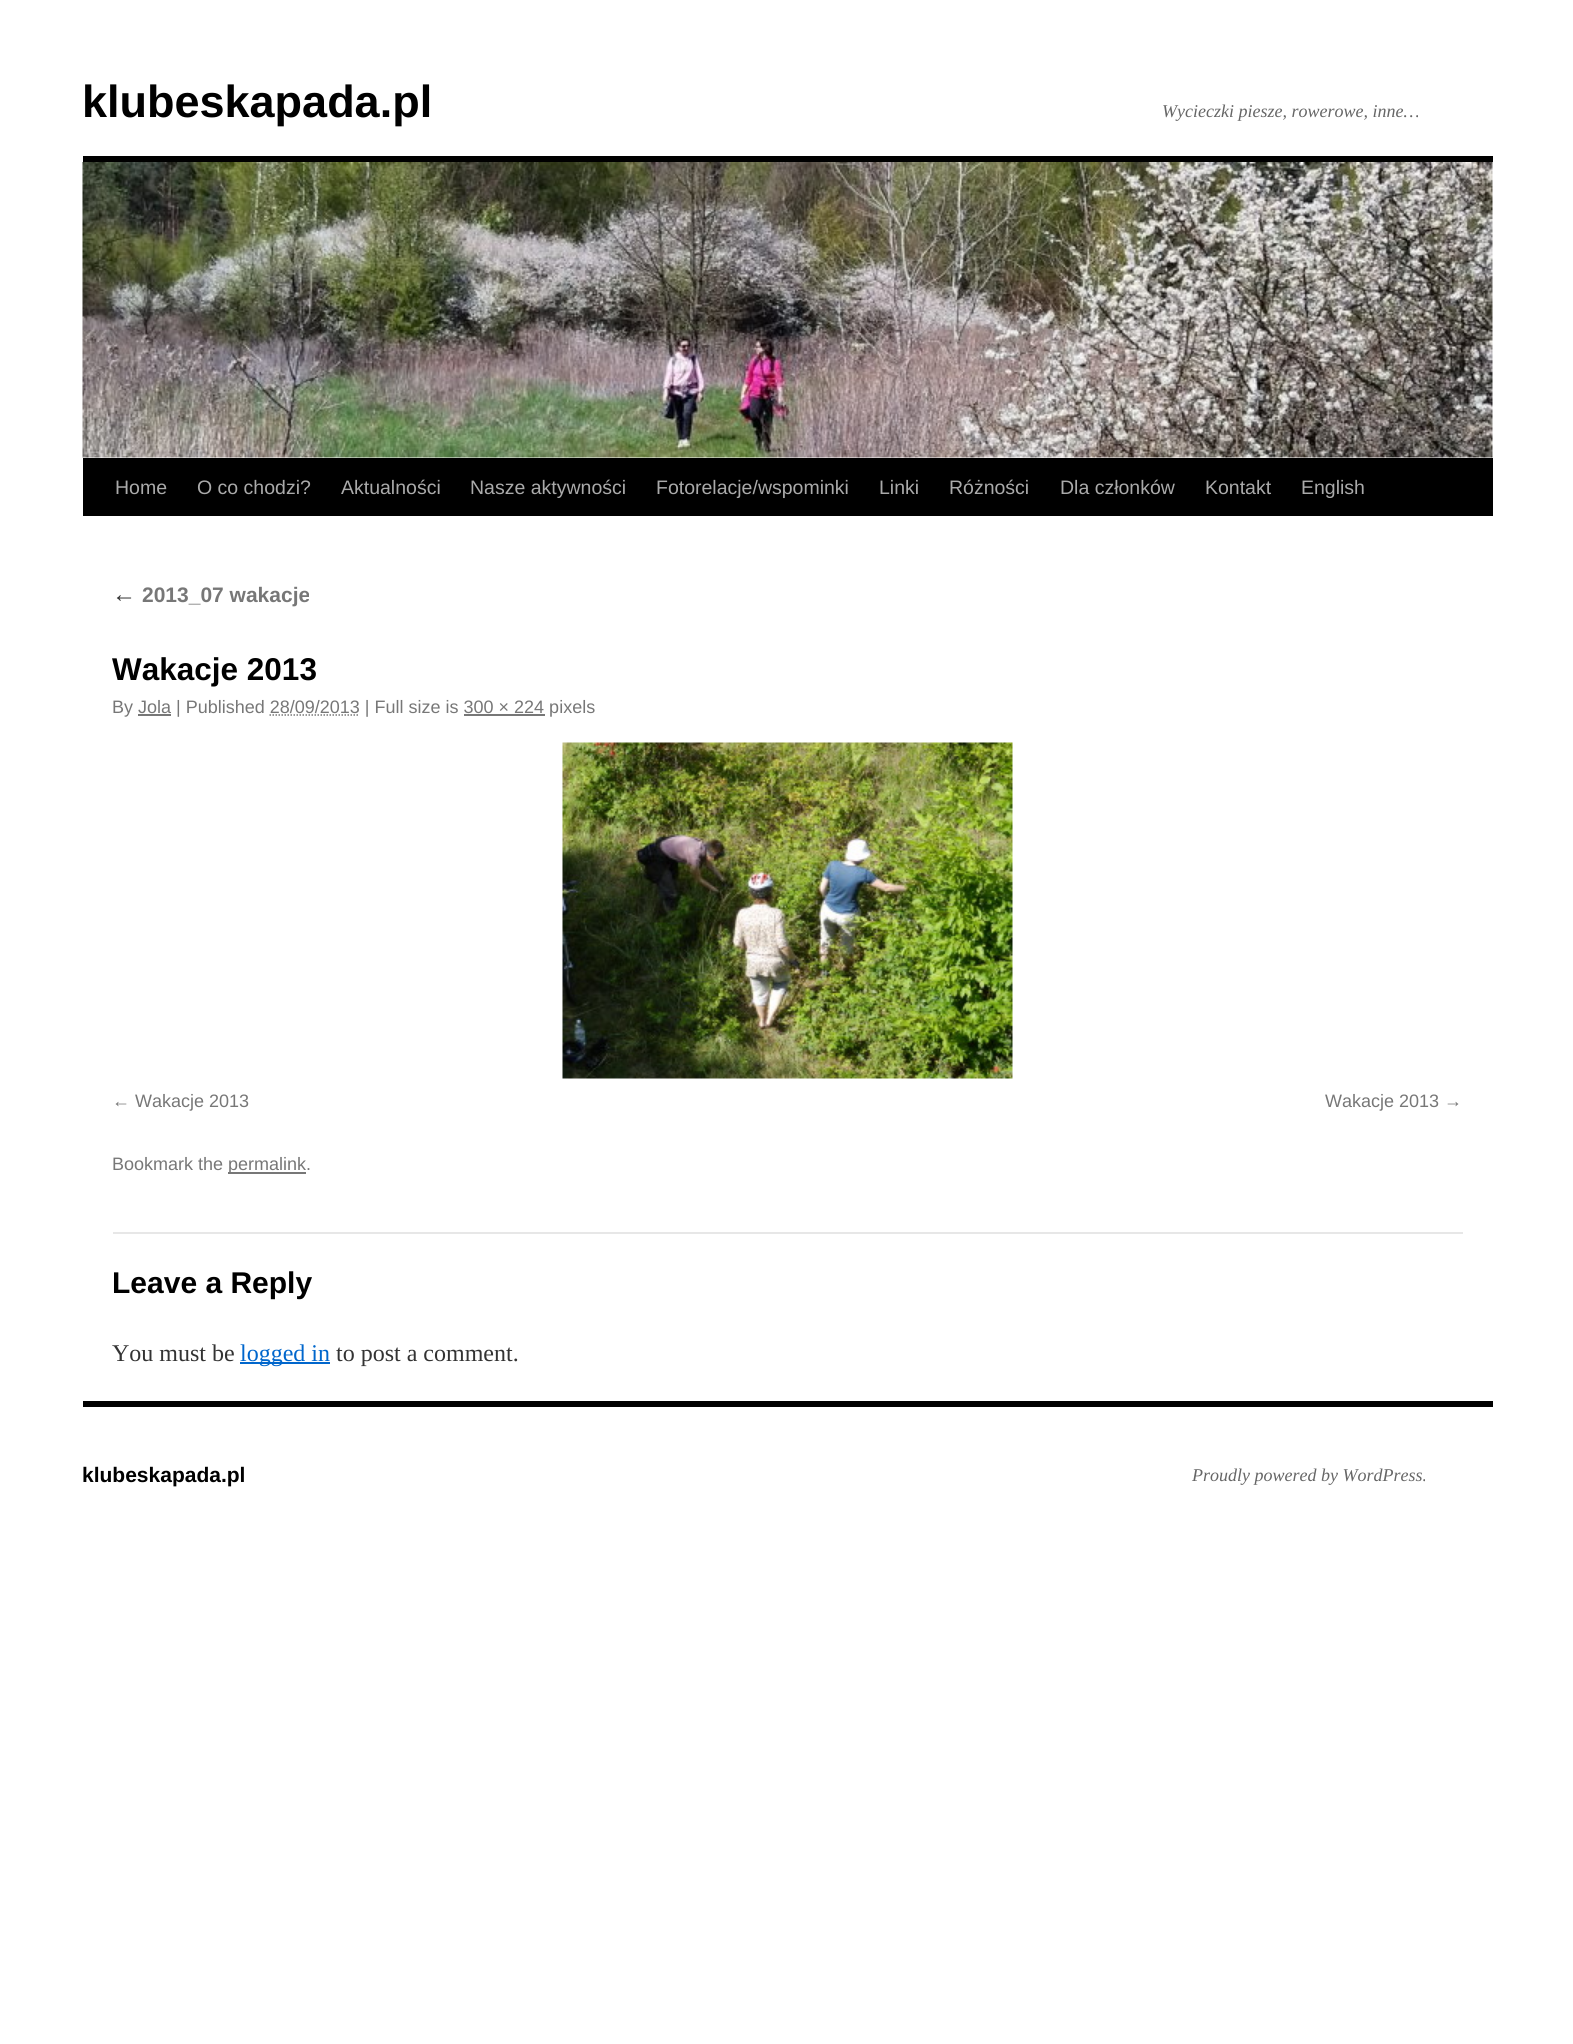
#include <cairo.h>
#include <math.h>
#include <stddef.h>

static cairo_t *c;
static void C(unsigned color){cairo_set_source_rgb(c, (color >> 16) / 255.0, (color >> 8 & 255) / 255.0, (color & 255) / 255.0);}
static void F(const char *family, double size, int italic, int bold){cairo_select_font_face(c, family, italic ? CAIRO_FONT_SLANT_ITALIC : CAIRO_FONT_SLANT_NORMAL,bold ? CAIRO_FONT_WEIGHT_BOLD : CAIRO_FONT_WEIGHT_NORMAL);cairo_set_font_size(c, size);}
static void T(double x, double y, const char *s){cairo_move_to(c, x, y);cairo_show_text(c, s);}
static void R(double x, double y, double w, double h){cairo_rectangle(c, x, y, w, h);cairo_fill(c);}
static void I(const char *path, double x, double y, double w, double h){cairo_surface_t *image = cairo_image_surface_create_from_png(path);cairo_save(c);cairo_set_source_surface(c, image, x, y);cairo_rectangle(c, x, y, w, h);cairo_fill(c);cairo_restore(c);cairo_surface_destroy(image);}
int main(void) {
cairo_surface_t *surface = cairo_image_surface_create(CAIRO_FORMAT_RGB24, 1573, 2044);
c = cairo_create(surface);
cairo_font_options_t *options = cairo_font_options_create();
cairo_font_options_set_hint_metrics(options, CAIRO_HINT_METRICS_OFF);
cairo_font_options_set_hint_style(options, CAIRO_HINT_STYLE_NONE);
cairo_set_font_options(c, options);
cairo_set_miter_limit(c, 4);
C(0xffffff);
cairo_paint(c);
F("Liberation Sans",45,0,1);
C(0x000000);
T(82,117,"klubeskapada.pl");
F("Liberation Serif",18,1,0);
C(0x666666);
T(1162,117,"Wycieczki piesze, rowerowe, inne…");
C(0x000000);
R(83,156,1410,6);
R(83,458,1410,58);
I("1.png",82,162,1411,296);
F("Liberation Sans",19.5,0,0);
C(0xaaaaaa);
T(115,494,"Home");
T(197,494,"O co chodzi?");
T(341,494,"Aktualności");
T(470,494,"Nasze aktywności");
T(656,494,"Fotorelacje/wspominki");
T(879,494,"Linki");
T(949,494,"Różności");
T(1060,494,"Dla członków");
T(1205,494,"Kontakt");
T(1301,494,"English");
F("Liberation Serif",24,1,0);
C(0x333333);
T(112,602,"←");
F("Liberation Sans",21,0,1);
C(0x777777);
T(142,602,"2013_07 wakacje");
F("Liberation Sans",31.5,0,1);
C(0x000000);
T(112,680,"Wakacje 2013");
F("Liberation Sans",18,0,0);
C(0x777777);
T(112,713,"By Jola | Published 28/09/2013 | Full size is 300 × 224 pixels");
R(138,714,33,2);
cairo_new_path(c);
cairo_move_to(c,269.5,715);
cairo_line_to(c,359.5,715);
cairo_set_line_width(c,1.5);
cairo_set_dash(c,(double[]){1.5,1.5},2,0);
cairo_stroke(c);
R(464,714,81,2);
I("2.png",562,742,451,337);
T(112,1107,"← Wakacje 2013");
T(1325,1107,"Wakacje 2013 →");
T(112,1170,"Bookmark the");
R(228,1172,78,2);
T(228,1170,"permalink.");
C(0xe7e7e7);
R(113,1232,1350,2);
F("Liberation Sans",30,0,1);
C(0x000000);
T(112,1293,"Leave a Reply");
F("Liberation Serif",24,0,0);
C(0x333333);
T(112,1361,"You must be");
C(0x0066cc);
R(240,1362,90,2);
T(240,1361,"logged in");
C(0x333333);
T(336,1361,"to post a comment.");
C(0x000000);
R(83,1401,1410,6);
F("Liberation Sans",21,0,1);
T(82,1482,"klubeskapada.pl");
F("Liberation Serif",18,1,0);
C(0x666666);
T(1192,1481,"Proudly powered by WordPress.");
cairo_surface_write_to_png(surface, "o.png");
cairo_font_options_destroy(options);
cairo_destroy(c);
cairo_surface_destroy(surface);
return 0;
}
